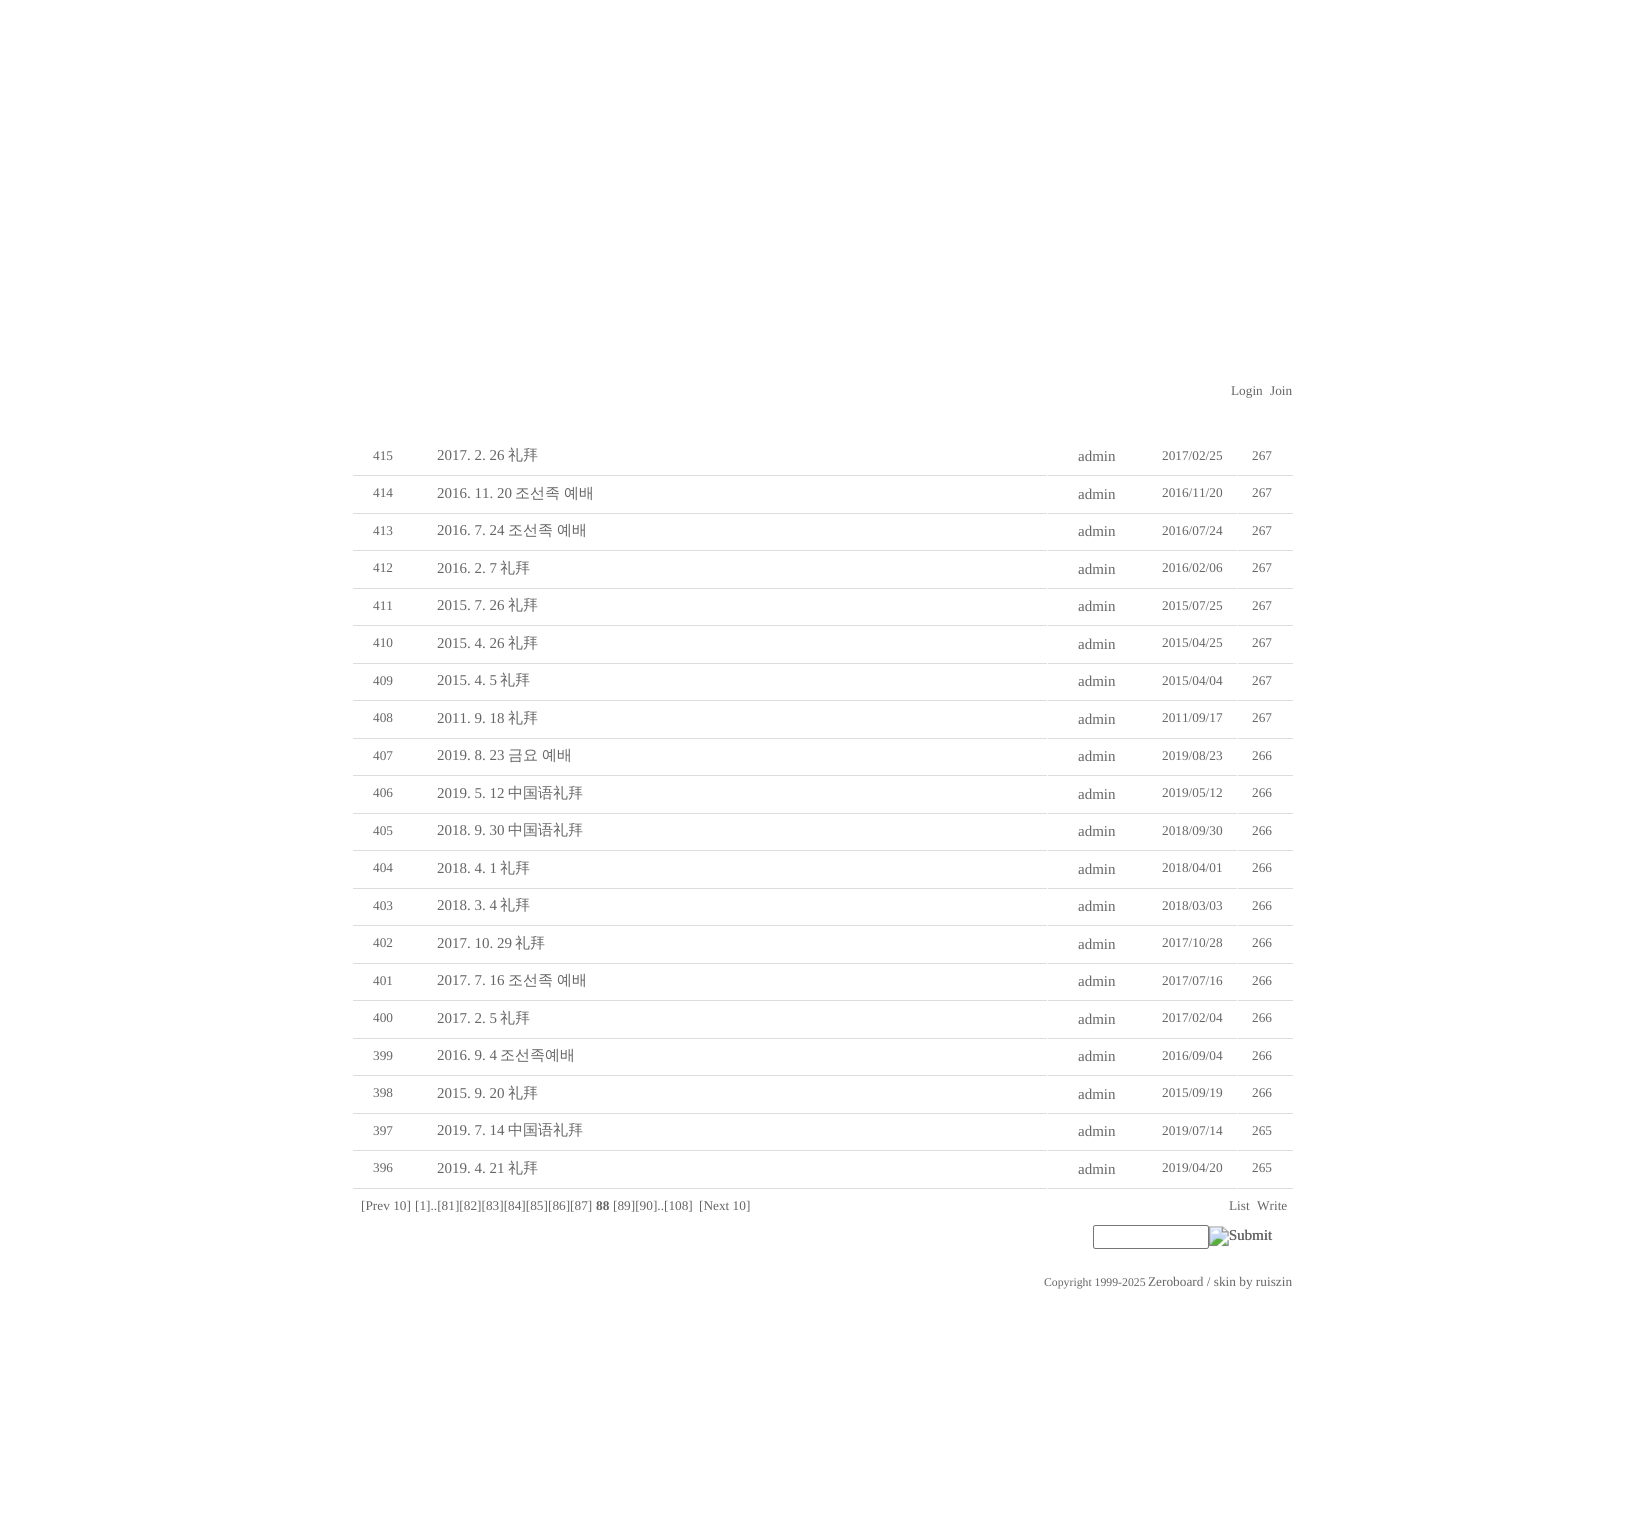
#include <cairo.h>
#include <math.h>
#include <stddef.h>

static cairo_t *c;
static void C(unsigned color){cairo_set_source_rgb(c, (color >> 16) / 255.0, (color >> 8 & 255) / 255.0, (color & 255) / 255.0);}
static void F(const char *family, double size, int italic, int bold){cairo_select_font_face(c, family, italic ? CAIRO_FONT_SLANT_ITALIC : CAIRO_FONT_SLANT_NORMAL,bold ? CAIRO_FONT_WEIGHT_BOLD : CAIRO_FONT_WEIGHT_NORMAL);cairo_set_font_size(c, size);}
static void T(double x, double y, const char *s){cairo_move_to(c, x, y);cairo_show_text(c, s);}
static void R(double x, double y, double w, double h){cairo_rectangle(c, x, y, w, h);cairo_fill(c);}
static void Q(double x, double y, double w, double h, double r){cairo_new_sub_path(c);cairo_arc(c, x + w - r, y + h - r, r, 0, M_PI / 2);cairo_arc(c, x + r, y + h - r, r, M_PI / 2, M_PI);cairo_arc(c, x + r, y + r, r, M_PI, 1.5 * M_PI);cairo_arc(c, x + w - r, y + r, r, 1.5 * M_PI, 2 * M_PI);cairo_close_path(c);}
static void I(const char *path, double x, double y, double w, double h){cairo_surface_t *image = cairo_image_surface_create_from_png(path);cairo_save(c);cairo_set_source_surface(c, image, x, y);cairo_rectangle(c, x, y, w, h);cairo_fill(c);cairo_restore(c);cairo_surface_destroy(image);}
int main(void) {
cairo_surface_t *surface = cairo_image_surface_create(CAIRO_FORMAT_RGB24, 1644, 1535);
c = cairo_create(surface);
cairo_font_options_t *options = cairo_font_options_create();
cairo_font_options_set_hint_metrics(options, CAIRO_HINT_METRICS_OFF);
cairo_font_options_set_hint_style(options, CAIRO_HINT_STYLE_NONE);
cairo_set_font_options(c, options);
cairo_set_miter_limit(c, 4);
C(0xffffff);
cairo_paint(c);
F("Liberation Serif",13.3,0,0);
C(0x666666);
T(1231,395,"Login");
T(1270,395,"Join");
T(373,460,"415");
F("Liberation Serif",15,0,0);
T(437,460,"2017. 2. 26");
F("WenQuanYi Zen Hei Medium",15,0,0);
T(508,460,"礼拜");
F("Liberation Serif",15,0,0);
T(1078,461,"admin");
F("Liberation Serif",13.3,0,0);
T(1162,460,"2017/02/25");
T(1252,460,"267");
C(0xdddddd);
R(353,475,694,1);
R(1048,475,189,1);
R(1238,475,55,1);
C(0x666666);
T(373,497,"414");
F("Liberation Serif",15,0,0);
T(437,498,"2016. 11. 20");
F("WenQuanYi Zen Hei Medium",15,0,0);
T(515,498,"조선족");
T(564,498,"예배");
F("Liberation Serif",15,0,0);
T(1078,499,"admin");
F("Liberation Serif",13.3,0,0);
T(1162,497,"2016/11/20");
T(1252,497,"267");
C(0xdddddd);
R(353,513,694,1);
R(1048,513,189,1);
R(1238,513,55,1);
C(0x666666);
T(373,535,"413");
F("Liberation Serif",15,0,0);
T(437,535,"2016. 7. 24");
F("WenQuanYi Zen Hei Medium",15,0,0);
T(508,535,"조선족");
T(557,535,"예배");
F("Liberation Serif",15,0,0);
T(1078,536,"admin");
F("Liberation Serif",13.3,0,0);
T(1162,535,"2016/07/24");
T(1252,535,"267");
C(0xdddddd);
R(353,550,694,1);
R(1048,550,189,1);
R(1238,550,55,1);
C(0x666666);
T(373,572,"412");
F("Liberation Serif",15,0,0);
T(437,573,"2016. 2. 7");
F("WenQuanYi Zen Hei Medium",15,0,0);
T(500,573,"礼拜");
F("Liberation Serif",15,0,0);
T(1078,574,"admin");
F("Liberation Serif",13.3,0,0);
T(1162,572,"2016/02/06");
T(1252,572,"267");
C(0xdddddd);
R(353,588,694,1);
R(1048,588,189,1);
R(1238,588,55,1);
C(0x666666);
T(373,610,"411");
F("Liberation Serif",15,0,0);
T(437,610,"2015. 7. 26");
F("WenQuanYi Zen Hei Medium",15,0,0);
T(508,610,"礼拜");
F("Liberation Serif",15,0,0);
T(1078,611,"admin");
F("Liberation Serif",13.3,0,0);
T(1162,610,"2015/07/25");
T(1252,610,"267");
C(0xdddddd);
R(353,625,694,1);
R(1048,625,189,1);
R(1238,625,55,1);
C(0x666666);
T(373,647,"410");
F("Liberation Serif",15,0,0);
T(437,648,"2015. 4. 26");
F("WenQuanYi Zen Hei Medium",15,0,0);
T(508,648,"礼拜");
F("Liberation Serif",15,0,0);
T(1078,649,"admin");
F("Liberation Serif",13.3,0,0);
T(1162,647,"2015/04/25");
T(1252,647,"267");
C(0xdddddd);
R(353,663,694,1);
R(1048,663,189,1);
R(1238,663,55,1);
C(0x666666);
T(373,685,"409");
F("Liberation Serif",15,0,0);
T(437,685,"2015. 4. 5");
F("WenQuanYi Zen Hei Medium",15,0,0);
T(500,685,"礼拜");
F("Liberation Serif",15,0,0);
T(1078,686,"admin");
F("Liberation Serif",13.3,0,0);
T(1162,685,"2015/04/04");
T(1252,685,"267");
C(0xdddddd);
R(353,700,694,1);
R(1048,700,189,1);
R(1238,700,55,1);
C(0x666666);
T(373,722,"408");
F("Liberation Serif",15,0,0);
T(437,723,"2011. 9. 18");
F("WenQuanYi Zen Hei Medium",15,0,0);
T(508,723,"礼拜");
F("Liberation Serif",15,0,0);
T(1078,724,"admin");
F("Liberation Serif",13.3,0,0);
T(1162,722,"2011/09/17");
T(1252,722,"267");
C(0xdddddd);
R(353,738,694,1);
R(1048,738,189,1);
R(1238,738,55,1);
C(0x666666);
T(373,760,"407");
F("Liberation Serif",15,0,0);
T(437,760,"2019. 8. 23");
F("WenQuanYi Zen Hei Medium",15,0,0);
T(508,760,"금요");
T(542,760,"예배");
F("Liberation Serif",15,0,0);
T(1078,761,"admin");
F("Liberation Serif",13.3,0,0);
T(1162,760,"2019/08/23");
T(1252,760,"266");
C(0xdddddd);
R(353,775,694,1);
R(1048,775,189,1);
R(1238,775,55,1);
C(0x666666);
T(373,797,"406");
F("Liberation Serif",15,0,0);
T(437,798,"2019. 5. 12");
F("WenQuanYi Zen Hei Medium",15,0,0);
T(508,798,"中国语礼拜");
F("Liberation Serif",15,0,0);
T(1078,799,"admin");
F("Liberation Serif",13.3,0,0);
T(1162,797,"2019/05/12");
T(1252,797,"266");
C(0xdddddd);
R(353,813,694,1);
R(1048,813,189,1);
R(1238,813,55,1);
C(0x666666);
T(373,835,"405");
F("Liberation Serif",15,0,0);
T(437,835,"2018. 9. 30");
F("WenQuanYi Zen Hei Medium",15,0,0);
T(508,835,"中国语礼拜");
F("Liberation Serif",15,0,0);
T(1078,836,"admin");
F("Liberation Serif",13.3,0,0);
T(1162,835,"2018/09/30");
T(1252,835,"266");
C(0xdddddd);
R(353,850,694,1);
R(1048,850,189,1);
R(1238,850,55,1);
C(0x666666);
T(373,872,"404");
F("Liberation Serif",15,0,0);
T(437,873,"2018. 4. 1");
F("WenQuanYi Zen Hei Medium",15,0,0);
T(500,873,"礼拜");
F("Liberation Serif",15,0,0);
T(1078,874,"admin");
F("Liberation Serif",13.3,0,0);
T(1162,872,"2018/04/01");
T(1252,872,"266");
C(0xdddddd);
R(353,888,694,1);
R(1048,888,189,1);
R(1238,888,55,1);
C(0x666666);
T(373,910,"403");
F("Liberation Serif",15,0,0);
T(437,910,"2018. 3. 4");
F("WenQuanYi Zen Hei Medium",15,0,0);
T(500,910,"礼拜");
F("Liberation Serif",15,0,0);
T(1078,911,"admin");
F("Liberation Serif",13.3,0,0);
T(1162,910,"2018/03/03");
T(1252,910,"266");
C(0xdddddd);
R(353,925,694,1);
R(1048,925,189,1);
R(1238,925,55,1);
C(0x666666);
T(373,947,"402");
F("Liberation Serif",15,0,0);
T(437,948,"2017. 10. 29");
F("WenQuanYi Zen Hei Medium",15,0,0);
T(515,948,"礼拜");
F("Liberation Serif",15,0,0);
T(1078,949,"admin");
F("Liberation Serif",13.3,0,0);
T(1162,947,"2017/10/28");
T(1252,947,"266");
C(0xdddddd);
R(353,963,694,1);
R(1048,963,189,1);
R(1238,963,55,1);
C(0x666666);
T(373,985,"401");
F("Liberation Serif",15,0,0);
T(437,985,"2017. 7. 16");
F("WenQuanYi Zen Hei Medium",15,0,0);
T(508,985,"조선족");
T(557,985,"예배");
F("Liberation Serif",15,0,0);
T(1078,986,"admin");
F("Liberation Serif",13.3,0,0);
T(1162,985,"2017/07/16");
T(1252,985,"266");
C(0xdddddd);
R(353,1000,694,1);
R(1048,1000,189,1);
R(1238,1000,55,1);
C(0x666666);
T(373,1022,"400");
F("Liberation Serif",15,0,0);
T(437,1023,"2017. 2. 5");
F("WenQuanYi Zen Hei Medium",15,0,0);
T(500,1023,"礼拜");
F("Liberation Serif",15,0,0);
T(1078,1024,"admin");
F("Liberation Serif",13.3,0,0);
T(1162,1022,"2017/02/04");
T(1252,1022,"266");
C(0xdddddd);
R(353,1038,694,1);
R(1048,1038,189,1);
R(1238,1038,55,1);
C(0x666666);
T(373,1060,"399");
F("Liberation Serif",15,0,0);
T(437,1060,"2016. 9. 4");
F("WenQuanYi Zen Hei Medium",15,0,0);
T(500,1060,"조선족예배");
F("Liberation Serif",15,0,0);
T(1078,1061,"admin");
F("Liberation Serif",13.3,0,0);
T(1162,1060,"2016/09/04");
T(1252,1060,"266");
C(0xdddddd);
R(353,1075,694,1);
R(1048,1075,189,1);
R(1238,1075,55,1);
C(0x666666);
T(373,1097,"398");
F("Liberation Serif",15,0,0);
T(437,1098,"2015. 9. 20");
F("WenQuanYi Zen Hei Medium",15,0,0);
T(508,1098,"礼拜");
F("Liberation Serif",15,0,0);
T(1078,1099,"admin");
F("Liberation Serif",13.3,0,0);
T(1162,1097,"2015/09/19");
T(1252,1097,"266");
C(0xdddddd);
R(353,1113,694,1);
R(1048,1113,189,1);
R(1238,1113,55,1);
C(0x666666);
T(373,1135,"397");
F("Liberation Serif",15,0,0);
T(437,1135,"2019. 7. 14");
F("WenQuanYi Zen Hei Medium",15,0,0);
T(508,1135,"中国语礼拜");
F("Liberation Serif",15,0,0);
T(1078,1136,"admin");
F("Liberation Serif",13.3,0,0);
T(1162,1135,"2019/07/14");
T(1252,1135,"265");
C(0xdddddd);
R(353,1150,694,1);
R(1048,1150,189,1);
R(1238,1150,55,1);
C(0x666666);
T(373,1172,"396");
F("Liberation Serif",15,0,0);
T(437,1173,"2019. 4. 21");
F("WenQuanYi Zen Hei Medium",15,0,0);
T(508,1173,"礼拜");
F("Liberation Serif",15,0,0);
T(1078,1174,"admin");
F("Liberation Serif",13.3,0,0);
T(1162,1172,"2019/04/20");
T(1252,1172,"265");
C(0xdddddd);
R(353,1188,694,1);
R(1048,1188,189,1);
R(1238,1188,55,1);
C(0x666666);
T(361,1210,"[Prev 10]");
T(415,1210,"[1]..[81][82][83][84][85][86][87]");
F("Liberation Serif",13.3,0,1);
T(596,1210,"88");
F("Liberation Serif",13.3,0,0);
T(613,1210,"[89][90]..[108]");
T(699,1210,"[Next 10]");
T(1229,1210,"List");
T(1257,1210,"Write");
Q(1093.5,1225.5,115,23,2);
C(0x767676);
cairo_set_line_width(c,1);
cairo_stroke(c);
I("1.png",1209,1226,63,21);
F("Liberation Serif",15,0,0);
C(0x666666);
T(1229,1240,"Submit");
F("Liberation Serif",11.75,0,0);
T(1044,1286,"Copyright 1999-2025");
F("Liberation Serif",13.3,0,0);
T(1148,1286,"Zeroboard / skin by ruiszin");
cairo_surface_write_to_png(surface, "o.png");
cairo_font_options_destroy(options);
cairo_destroy(c);
cairo_surface_destroy(surface);
return 0;
}
